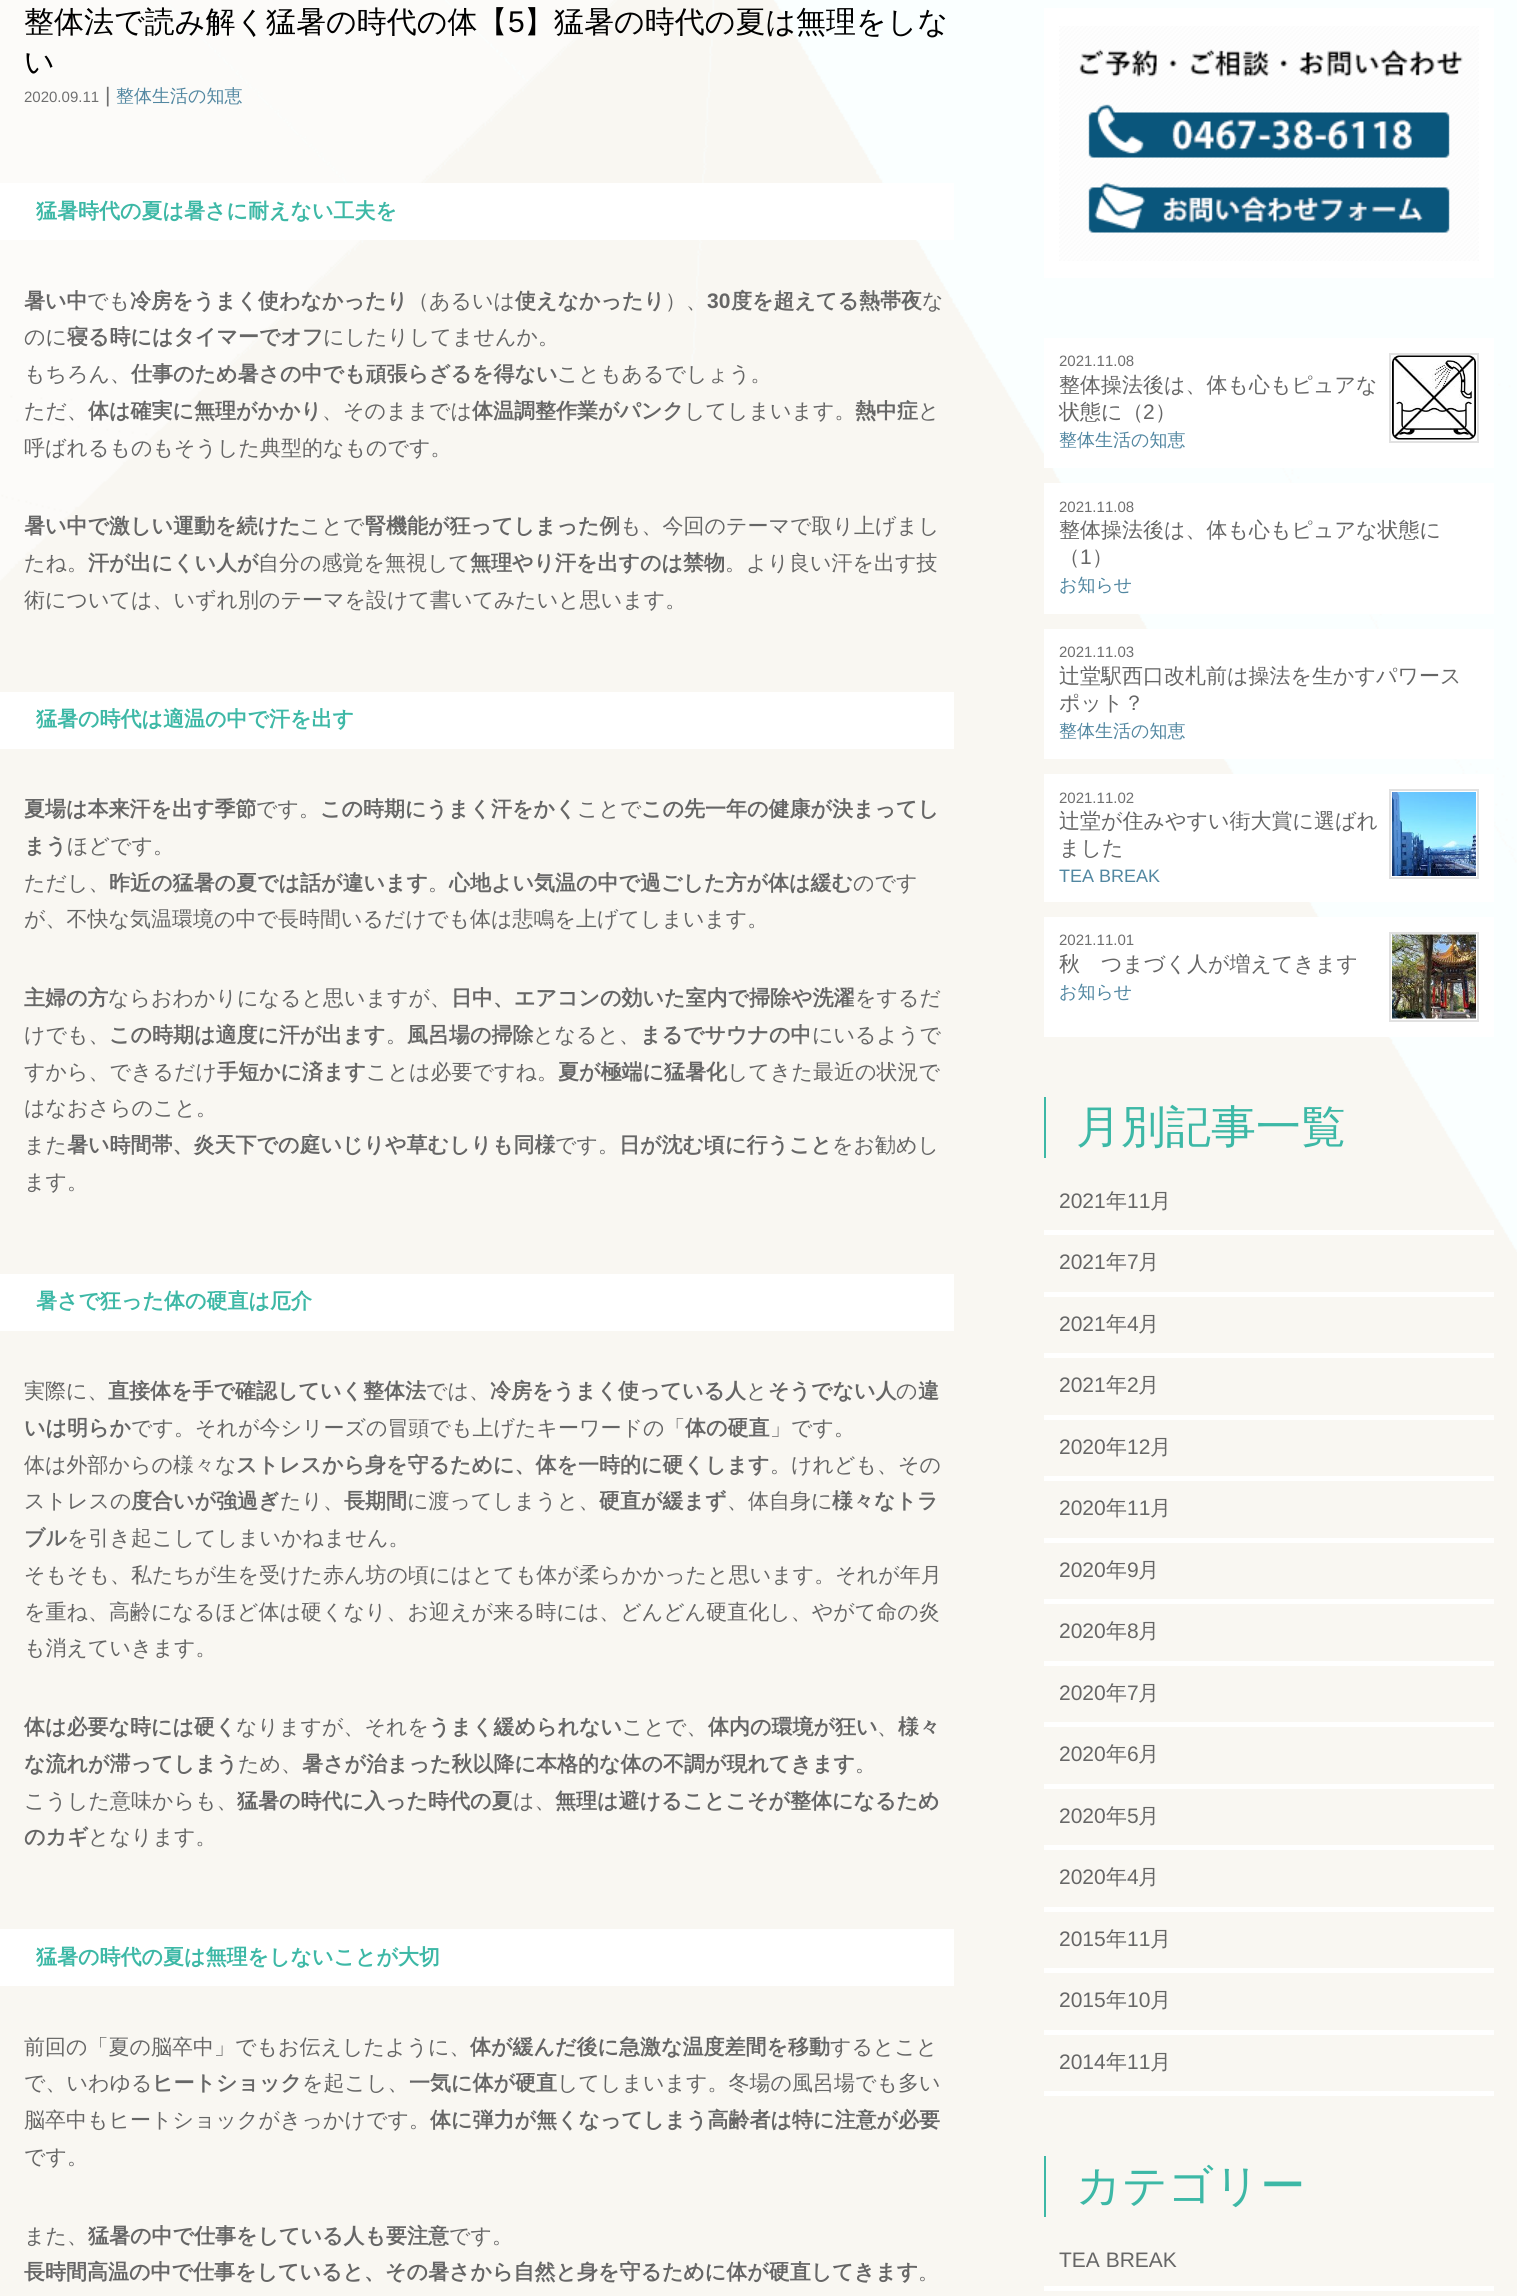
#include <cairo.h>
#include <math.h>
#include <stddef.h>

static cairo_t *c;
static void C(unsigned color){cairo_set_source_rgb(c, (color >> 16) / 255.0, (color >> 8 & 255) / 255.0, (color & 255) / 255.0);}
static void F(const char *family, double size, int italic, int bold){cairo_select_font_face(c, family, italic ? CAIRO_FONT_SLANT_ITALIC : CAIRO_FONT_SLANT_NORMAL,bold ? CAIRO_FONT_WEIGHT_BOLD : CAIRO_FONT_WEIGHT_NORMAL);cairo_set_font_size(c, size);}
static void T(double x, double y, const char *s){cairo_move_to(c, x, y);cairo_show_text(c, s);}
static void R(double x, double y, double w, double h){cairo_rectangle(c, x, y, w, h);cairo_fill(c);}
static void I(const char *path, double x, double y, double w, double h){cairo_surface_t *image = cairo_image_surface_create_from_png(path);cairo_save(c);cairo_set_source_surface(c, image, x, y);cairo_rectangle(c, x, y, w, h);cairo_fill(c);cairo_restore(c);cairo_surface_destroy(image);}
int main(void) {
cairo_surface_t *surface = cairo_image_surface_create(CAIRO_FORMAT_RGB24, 1517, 2296);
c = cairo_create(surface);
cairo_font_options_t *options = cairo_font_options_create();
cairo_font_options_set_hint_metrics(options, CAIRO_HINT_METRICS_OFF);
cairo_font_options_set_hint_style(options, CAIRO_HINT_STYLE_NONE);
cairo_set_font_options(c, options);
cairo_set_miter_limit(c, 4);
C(0xf9f7f2);
cairo_paint(c);
I("1.png",0,0,1517,1252);
F("WenQuanYi Zen Hei Medium",30,0,0);
C(0x000000);
T(24,32,"整体法で読み解く猛暑の時代の体【");
F("Liberation Sans",30,0,0);
T(508,32,"5");
F("WenQuanYi Zen Hei Medium",30,0,0);
T(524,32,"】猛暑の時代の夏は無理をしな");
T(24,72,"い");
F("Liberation Sans",15,0,0);
C(0x6f6f6f);
T(24,102,"2020.09.11");
F("Liberation Sans",21,0,0);
T(105,102,"|");
F("WenQuanYi Zen Hei Medium",18,0,0);
C(0x5287a1);
T(116,102,"整体生活の知恵");
C(0xffffff);
R(0,183,954,57);
F("WenQuanYi Zen Hei",21,0,1);
C(0x3db8a6);
T(36,218,"猛暑時代の夏は暑さに耐えない工夫を");
C(0x666666);
T(24,308,"暑い中");
F("WenQuanYi Zen Hei Medium",21,0,0);
T(87,308,"でも");
F("WenQuanYi Zen Hei",21,0,1);
T(130,308,"冷房をうまく使わなかったり");
F("WenQuanYi Zen Hei Medium",21,0,0);
T(408,308,"（あるいは");
F("WenQuanYi Zen Hei",21,0,1);
T(515,308,"使えなかったり");
F("WenQuanYi Zen Hei Medium",21,0,0);
T(665,308,"）、");
F("Liberation Sans",21,0,1);
T(707,308,"30");
F("WenQuanYi Zen Hei",21,0,1);
T(731,308,"度を超えてる熱帯夜");
F("WenQuanYi Zen Hei Medium",21,0,0);
T(922,308,"な");
T(24,344,"のに");
F("WenQuanYi Zen Hei",21,0,1);
T(67,344,"寝る時にはタイマーでオフ");
F("WenQuanYi Zen Hei Medium",21,0,0);
T(323,344,"にしたりしてませんか。");
T(24,381,"もちろん、");
F("WenQuanYi Zen Hei",21,0,1);
T(131,381,"仕事のため暑さの中でも頑張らざるを得ない");
F("WenQuanYi Zen Hei Medium",21,0,0);
T(557,381,"こともあるでしょう。");
T(24,418,"ただ、");
F("WenQuanYi Zen Hei",21,0,1);
T(88,418,"体は確実に無理がかかり");
F("WenQuanYi Zen Hei Medium",21,0,0);
T(322,418,"、そのままでは");
F("WenQuanYi Zen Hei",21,0,1);
T(472,418,"体温調整作業がパンク");
F("WenQuanYi Zen Hei Medium",21,0,0);
T(684,418,"してしまいます。");
F("WenQuanYi Zen Hei",21,0,1);
T(855,418,"熱中症");
F("WenQuanYi Zen Hei Medium",21,0,0);
T(918,418,"と");
T(24,455,"呼ばれるものもそうした典型的なものです。");
F("WenQuanYi Zen Hei",21,0,1);
T(24,533,"暑い中で激しい運動を続けた");
F("WenQuanYi Zen Hei Medium",21,0,0);
T(300,533,"ことで");
F("WenQuanYi Zen Hei",21,0,1);
T(365,533,"腎機能が狂ってしまった例");
F("WenQuanYi Zen Hei Medium",21,0,0);
T(620,533,"も、今回のテーマで取り上げまし");
T(24,570,"たね。");
F("WenQuanYi Zen Hei",21,0,1);
T(88,570,"汗が出にくい人が");
F("WenQuanYi Zen Hei Medium",21,0,0);
T(258,570,"自分の感覚を無視して");
F("WenQuanYi Zen Hei",21,0,1);
T(470,570,"無理やり汗を出すのは禁物");
F("WenQuanYi Zen Hei Medium",21,0,0);
T(725,570,"。より良い汗を出す技");
T(24,607,"術については、いずれ別のテーマを設けて書いてみたいと思います。");
C(0xffffff);
R(0,692,954,57);
F("WenQuanYi Zen Hei",21,0,1);
C(0x3db8a6);
T(36,726,"猛暑の時代は適温の中で汗を出す");
C(0x666666);
T(24,816,"夏場は本来汗を出す季節");
F("WenQuanYi Zen Hei Medium",21,0,0);
T(256,816,"です。");
F("WenQuanYi Zen Hei",21,0,1);
T(320,816,"この時期にうまく汗をかく");
F("WenQuanYi Zen Hei Medium",21,0,0);
T(577,816,"ことで");
F("WenQuanYi Zen Hei",21,0,1);
T(641,816,"この先一年の健康が決まってし");
T(24,853,"まう");
F("WenQuanYi Zen Hei Medium",21,0,0);
T(67,853,"ほどです。");
T(24,890,"ただし、");
F("WenQuanYi Zen Hei",21,0,1);
T(109,890,"昨近の猛暑の夏では話が違います");
F("WenQuanYi Zen Hei Medium",21,0,0);
T(428,890,"。");
F("WenQuanYi Zen Hei",21,0,1);
T(449,890,"心地よい気温の中で過ごした方が体は緩む");
F("WenQuanYi Zen Hei Medium",21,0,0);
T(853,890,"のです");
T(24,926,"が、不快な気温環境の中で長時間いるだけでも体は悲鳴を上げてしまいます。");
F("WenQuanYi Zen Hei",21,0,1);
T(24,1005,"主婦の方");
F("WenQuanYi Zen Hei Medium",21,0,0);
T(108,1005,"ならおわかりになると思いますが、");
F("WenQuanYi Zen Hei",21,0,1);
T(451,1005,"日中、エアコンの効いた室内で掃除や洗濯");
F("WenQuanYi Zen Hei Medium",21,0,0);
T(855,1005,"をするだ");
T(24,1042,"けでも、");
F("WenQuanYi Zen Hei",21,0,1);
T(109,1042,"この時期は適度に汗が出ます");
F("WenQuanYi Zen Hei Medium",21,0,0);
T(386,1042,"。");
F("WenQuanYi Zen Hei",21,0,1);
T(407,1042,"風呂場の掃除");
F("WenQuanYi Zen Hei Medium",21,0,0);
T(533,1042,"となると、");
F("WenQuanYi Zen Hei",21,0,1);
T(640,1042,"まるでサウナの中");
F("WenQuanYi Zen Hei Medium",21,0,0);
T(812,1042,"にいるようで");
T(24,1079,"すから、できるだけ");
F("WenQuanYi Zen Hei",21,0,1);
T(217,1079,"手短かに済ます");
F("WenQuanYi Zen Hei Medium",21,0,0);
T(366,1079,"ことは必要ですね。");
F("WenQuanYi Zen Hei",21,0,1);
T(558,1079,"夏が極端に猛暑化");
F("WenQuanYi Zen Hei Medium",21,0,0);
T(727,1079,"してきた最近の状況で");
T(24,1115,"はなおさらのこと。");
T(24,1152,"また");
F("WenQuanYi Zen Hei",21,0,1);
T(67,1152,"暑い時間帯、炎天下での庭いじりや草むしりも同様");
F("WenQuanYi Zen Hei Medium",21,0,0);
T(555,1152,"です。");
F("WenQuanYi Zen Hei",21,0,1);
T(619,1152,"日が沈む頃に行うこと");
F("WenQuanYi Zen Hei Medium",21,0,0);
T(832,1152,"をお勧めし");
T(24,1189,"ます。");
C(0xffffff);
R(0,1274,954,57);
F("WenQuanYi Zen Hei",21,0,1);
C(0x3db8a6);
T(36,1308,"暑さで狂った体の硬直は厄介");
F("WenQuanYi Zen Hei Medium",21,0,0);
C(0x666666);
T(24,1398,"実際に、");
F("WenQuanYi Zen Hei",21,0,1);
T(108,1398,"直接体を手で確認していく整体法");
F("WenQuanYi Zen Hei Medium",21,0,0);
T(426,1398,"では、");
F("WenQuanYi Zen Hei",21,0,1);
T(490,1398,"冷房をうまく使っている人");
F("WenQuanYi Zen Hei Medium",21,0,0);
T(746,1398,"と");
F("WenQuanYi Zen Hei",21,0,1);
T(768,1398,"そうでない人");
F("WenQuanYi Zen Hei Medium",21,0,0);
T(896,1398,"の");
F("WenQuanYi Zen Hei",21,0,1);
T(918,1398,"違");
T(24,1435,"いは明らか");
F("WenQuanYi Zen Hei Medium",21,0,0);
T(131,1435,"です。それが今シリーズの冒頭でも上げたキーワードの「");
F("WenQuanYi Zen Hei",21,0,1);
T(685,1435,"体の硬直");
F("WenQuanYi Zen Hei Medium",21,0,0);
T(770,1435,"」です。");
T(24,1472,"体は外部からの様々な");
F("WenQuanYi Zen Hei",21,0,1);
T(236,1472,"ストレスから身を守るために、体を一時的に硬くします");
F("WenQuanYi Zen Hei Medium",21,0,0);
T(770,1472,"。けれども、その");
T(24,1508,"ストレスの");
F("WenQuanYi Zen Hei",21,0,1);
T(131,1508,"度合いが強過ぎ");
F("WenQuanYi Zen Hei Medium",21,0,0);
T(280,1508,"たり、");
F("WenQuanYi Zen Hei",21,0,1);
T(344,1508,"長期間");
F("WenQuanYi Zen Hei Medium",21,0,0);
T(407,1508,"に渡ってしまうと、");
F("WenQuanYi Zen Hei",21,0,1);
T(599,1508,"硬直が緩まず");
F("WenQuanYi Zen Hei Medium",21,0,0);
T(727,1508,"、体自身に");
F("WenQuanYi Zen Hei",21,0,1);
T(832,1508,"様々なトラ");
T(24,1545,"ブル");
F("WenQuanYi Zen Hei Medium",21,0,0);
T(67,1545,"を引き起こしてしまいかねません。");
T(24,1582,"そもそも、私たちが生を受けた赤ん坊の頃にはとても体が柔らかかったと思います。それが年月");
T(24,1619,"を重ね、高齢になるほど体は硬くなり、お迎えが来る時には、どんどん硬直化し、やがて命の炎");
T(24,1655,"も消えていきます。");
F("WenQuanYi Zen Hei",21,0,1);
T(24,1734,"体は必要な時には硬く");
F("WenQuanYi Zen Hei Medium",21,0,0);
T(236,1734,"なりますが、それを");
F("WenQuanYi Zen Hei",21,0,1);
T(429,1734,"うまく緩められない");
F("WenQuanYi Zen Hei Medium",21,0,0);
T(622,1734,"ことで、");
F("WenQuanYi Zen Hei",21,0,1);
T(708,1734,"体内の環境が狂い");
F("WenQuanYi Zen Hei Medium",21,0,0);
T(877,1734,"、");
F("WenQuanYi Zen Hei",21,0,1);
T(898,1734,"様々");
T(24,1771,"な流れが滞ってしまう");
F("WenQuanYi Zen Hei Medium",21,0,0);
T(238,1771,"ため、");
F("WenQuanYi Zen Hei",21,0,1);
T(302,1771,"暑さが治まった秋以降に本格的な体の不調が現れてきます");
F("WenQuanYi Zen Hei Medium",21,0,0);
T(855,1771,"。");
T(24,1808,"こうした意味からも、");
F("WenQuanYi Zen Hei",21,0,1);
T(237,1808,"猛暑の時代に入った時代の夏");
F("WenQuanYi Zen Hei Medium",21,0,0);
T(513,1808,"は、");
F("WenQuanYi Zen Hei",21,0,1);
T(555,1808,"無理は避けることこそが整体になるため");
T(24,1844,"のカギ");
F("WenQuanYi Zen Hei Medium",21,0,0);
T(88,1844,"となります。");
C(0xffffff);
R(0,1929,954,57);
F("WenQuanYi Zen Hei",21,0,1);
C(0x3db8a6);
T(36,1964,"猛暑の時代の夏は無理をしないことが大切");
F("WenQuanYi Zen Hei Medium",21,0,0);
C(0x666666);
T(24,2054,"前回の「夏の脳卒中」でもお伝えしたように、");
F("WenQuanYi Zen Hei",21,0,1);
T(470,2054,"体が緩んだ後に急激な温度差間を移動");
F("WenQuanYi Zen Hei Medium",21,0,0);
T(830,2054,"するとこと");
T(24,2090,"で、いわゆる");
F("WenQuanYi Zen Hei",21,0,1);
T(152,2090,"ヒートショック");
F("WenQuanYi Zen Hei Medium",21,0,0);
T(302,2090,"を起こし、");
F("WenQuanYi Zen Hei",21,0,1);
T(409,2090,"一気に体が硬直");
F("WenQuanYi Zen Hei Medium",21,0,0);
T(557,2090,"してしまいます。冬場の風呂場でも多い");
T(24,2127,"脳卒中もヒートショックがきっかけです。");
F("WenQuanYi Zen Hei",21,0,1);
T(430,2127,"体に弾力が無くなってしまう高齢者は特に注意が必要");
F("WenQuanYi Zen Hei Medium",21,0,0);
T(24,2164,"です。");
T(24,2243,"また、");
F("WenQuanYi Zen Hei",21,0,1);
T(88,2243,"猛暑の中で仕事をしている人も要注意");
F("WenQuanYi Zen Hei Medium",21,0,0);
T(449,2243,"です。");
F("WenQuanYi Zen Hei",21,0,1);
T(24,2279,"長時間高温の中で仕事をしていると、その暑さから自然と身を守るために体が硬直してきます");
F("WenQuanYi Zen Hei Medium",21,0,0);
T(918,2279,"。");
C(0xffffff);
R(1044,8,450,270);
I("2.png",1059,26,420,235);
R(1044,338,450,130);
F("Liberation Sans",15,0,0);
C(0x6f6f6f);
T(1059,366,"2021.11.08");
cairo_rectangle(c,1390,354,88,88);
C(0xe1e1e1);
cairo_stroke(c);
I("3.png",1392,355,84,85);
F("WenQuanYi Zen Hei Medium",21,0,0);
C(0x666666);
T(1059,392,"整体操法後は、体も心もピュアな");
T(1059,419,"状態に（");
F("Liberation Sans",21,0,0);
T(1143,419,"2");
F("WenQuanYi Zen Hei Medium",21,0,0);
T(1155,419,"）");
F("WenQuanYi Zen Hei Medium",18,0,0);
C(0x5287a1);
T(1059,446,"整体生活の知恵");
C(0xffffff);
R(1044,483,450,131);
F("Liberation Sans",15,0,0);
C(0x6f6f6f);
T(1059,512,"2021.11.08");
F("WenQuanYi Zen Hei Medium",21,0,0);
C(0x666666);
T(1059,537,"整体操法後は、体も心もピュアな状態に");
T(1059,564,"（");
F("Liberation Sans",21,0,0);
T(1080,564,"1");
F("WenQuanYi Zen Hei Medium",21,0,0);
T(1092,564,"）");
F("WenQuanYi Zen Hei Medium",18,0,0);
C(0x5287a1);
T(1059,591,"お知らせ");
C(0xffffff);
R(1044,629,450,130);
F("Liberation Sans",15,0,0);
C(0x6f6f6f);
T(1059,657,"2021.11.03");
F("WenQuanYi Zen Hei Medium",21,0,0);
C(0x666666);
T(1059,683,"辻堂駅西口改札前は操法を生かすパワース");
T(1059,710,"ポット？");
F("WenQuanYi Zen Hei Medium",18,0,0);
C(0x5287a1);
T(1059,737,"整体生活の知恵");
C(0xffffff);
R(1044,774,450,128);
F("Liberation Sans",15,0,0);
C(0x6f6f6f);
T(1059,803,"2021.11.02");
cairo_rectangle(c,1390,790,88,88);
C(0xe1e1e1);
cairo_stroke(c);
I("4.png",1392,792,84,84);
F("WenQuanYi Zen Hei Medium",21,0,0);
C(0x666666);
T(1059,828,"辻堂が住みやすい街大賞に選ばれ");
T(1059,855,"ました");
F("Liberation Sans",18,0,0);
C(0x5287a1);
T(1059,882,"TEA BREAK");
C(0xffffff);
R(1044,917,450,120);
F("Liberation Sans",15,0,0);
C(0x6f6f6f);
T(1059,945,"2021.11.01");
cairo_rectangle(c,1390,933,88,88);
C(0xe1e1e1);
cairo_stroke(c);
I("5.png",1392,934,84,85);
F("WenQuanYi Zen Hei Medium",21,0,0);
C(0x666666);
T(1059,971,"秋　つまづく人が増えてきます");
F("WenQuanYi Zen Hei Medium",18,0,0);
C(0x5287a1);
T(1059,998,"お知らせ");
C(0x3db8a6);
R(1044,1097,2,61);
F("WenQuanYi Zen Hei Medium",45,0,0);
T(1076,1142,"月別記事一覧");
C(0xffffff);
R(1044,1230,450,5);
F("Liberation Sans",21,0,0);
C(0x666666);
T(1059,1208,"2021");
F("WenQuanYi Zen Hei Medium",21,0,0);
T(1106,1208,"年");
F("Liberation Sans",21,0,0);
T(1127,1208,"11");
F("WenQuanYi Zen Hei Medium",21,0,0);
T(1150,1208,"月");
C(0xffffff);
R(1044,1292,450,5);
F("Liberation Sans",21,0,0);
C(0x666666);
T(1059,1269,"2021");
F("WenQuanYi Zen Hei Medium",21,0,0);
T(1106,1269,"年");
F("Liberation Sans",21,0,0);
T(1127,1269,"7");
F("WenQuanYi Zen Hei Medium",21,0,0);
T(1138,1269,"月");
C(0xffffff);
R(1044,1353,450,5);
F("Liberation Sans",21,0,0);
C(0x666666);
T(1059,1331,"2021");
F("WenQuanYi Zen Hei Medium",21,0,0);
T(1106,1331,"年");
F("Liberation Sans",21,0,0);
T(1127,1331,"4");
F("WenQuanYi Zen Hei Medium",21,0,0);
T(1138,1331,"月");
C(0xffffff);
R(1044,1415,450,5);
F("Liberation Sans",21,0,0);
C(0x666666);
T(1059,1392,"2021");
F("WenQuanYi Zen Hei Medium",21,0,0);
T(1106,1392,"年");
F("Liberation Sans",21,0,0);
T(1127,1392,"2");
F("WenQuanYi Zen Hei Medium",21,0,0);
T(1138,1392,"月");
C(0xffffff);
R(1044,1476,450,5);
F("Liberation Sans",21,0,0);
C(0x666666);
T(1059,1454,"2020");
F("WenQuanYi Zen Hei Medium",21,0,0);
T(1106,1454,"年");
F("Liberation Sans",21,0,0);
T(1127,1454,"12");
F("WenQuanYi Zen Hei Medium",21,0,0);
T(1150,1454,"月");
C(0xffffff);
R(1044,1538,450,5);
F("Liberation Sans",21,0,0);
C(0x666666);
T(1059,1515,"2020");
F("WenQuanYi Zen Hei Medium",21,0,0);
T(1106,1515,"年");
F("Liberation Sans",21,0,0);
T(1127,1515,"11");
F("WenQuanYi Zen Hei Medium",21,0,0);
T(1150,1515,"月");
C(0xffffff);
R(1044,1599,450,5);
F("Liberation Sans",21,0,0);
C(0x666666);
T(1059,1577,"2020");
F("WenQuanYi Zen Hei Medium",21,0,0);
T(1106,1577,"年");
F("Liberation Sans",21,0,0);
T(1127,1577,"9");
F("WenQuanYi Zen Hei Medium",21,0,0);
T(1138,1577,"月");
C(0xffffff);
R(1044,1661,450,5);
F("Liberation Sans",21,0,0);
C(0x666666);
T(1059,1638,"2020");
F("WenQuanYi Zen Hei Medium",21,0,0);
T(1106,1638,"年");
F("Liberation Sans",21,0,0);
T(1127,1638,"8");
F("WenQuanYi Zen Hei Medium",21,0,0);
T(1138,1638,"月");
C(0xffffff);
R(1044,1722,450,5);
F("Liberation Sans",21,0,0);
C(0x666666);
T(1059,1700,"2020");
F("WenQuanYi Zen Hei Medium",21,0,0);
T(1106,1700,"年");
F("Liberation Sans",21,0,0);
T(1127,1700,"7");
F("WenQuanYi Zen Hei Medium",21,0,0);
T(1138,1700,"月");
C(0xffffff);
R(1044,1784,450,5);
F("Liberation Sans",21,0,0);
C(0x666666);
T(1059,1761,"2020");
F("WenQuanYi Zen Hei Medium",21,0,0);
T(1106,1761,"年");
F("Liberation Sans",21,0,0);
T(1127,1761,"6");
F("WenQuanYi Zen Hei Medium",21,0,0);
T(1138,1761,"月");
C(0xffffff);
R(1044,1845,450,5);
F("Liberation Sans",21,0,0);
C(0x666666);
T(1059,1823,"2020");
F("WenQuanYi Zen Hei Medium",21,0,0);
T(1106,1823,"年");
F("Liberation Sans",21,0,0);
T(1127,1823,"5");
F("WenQuanYi Zen Hei Medium",21,0,0);
T(1138,1823,"月");
C(0xffffff);
R(1044,1907,450,5);
F("Liberation Sans",21,0,0);
C(0x666666);
T(1059,1884,"2020");
F("WenQuanYi Zen Hei Medium",21,0,0);
T(1106,1884,"年");
F("Liberation Sans",21,0,0);
T(1127,1884,"4");
F("WenQuanYi Zen Hei Medium",21,0,0);
T(1138,1884,"月");
C(0xffffff);
R(1044,1968,450,5);
F("Liberation Sans",21,0,0);
C(0x666666);
T(1059,1946,"2015");
F("WenQuanYi Zen Hei Medium",21,0,0);
T(1106,1946,"年");
F("Liberation Sans",21,0,0);
T(1127,1946,"11");
F("WenQuanYi Zen Hei Medium",21,0,0);
T(1150,1946,"月");
C(0xffffff);
R(1044,2030,450,5);
F("Liberation Sans",21,0,0);
C(0x666666);
T(1059,2007,"2015");
F("WenQuanYi Zen Hei Medium",21,0,0);
T(1106,2007,"年");
F("Liberation Sans",21,0,0);
T(1127,2007,"10");
F("WenQuanYi Zen Hei Medium",21,0,0);
T(1150,2007,"月");
C(0xffffff);
R(1044,2091,450,5);
F("Liberation Sans",21,0,0);
C(0x666666);
T(1059,2069,"2014");
F("WenQuanYi Zen Hei Medium",21,0,0);
T(1106,2069,"年");
F("Liberation Sans",21,0,0);
T(1127,2069,"11");
F("WenQuanYi Zen Hei Medium",21,0,0);
T(1150,2069,"月");
C(0x3db8a6);
R(1044,2156,2,61);
F("WenQuanYi Zen Hei Medium",45,0,0);
T(1076,2201,"カテゴリー");
C(0xffffff);
R(1044,2286,450,5);
F("Liberation Sans",21,0,0);
C(0x666666);
T(1059,2267,"TEA BREAK");
cairo_surface_write_to_png(surface, "o.png");
cairo_font_options_destroy(options);
cairo_destroy(c);
cairo_surface_destroy(surface);
return 0;
}
